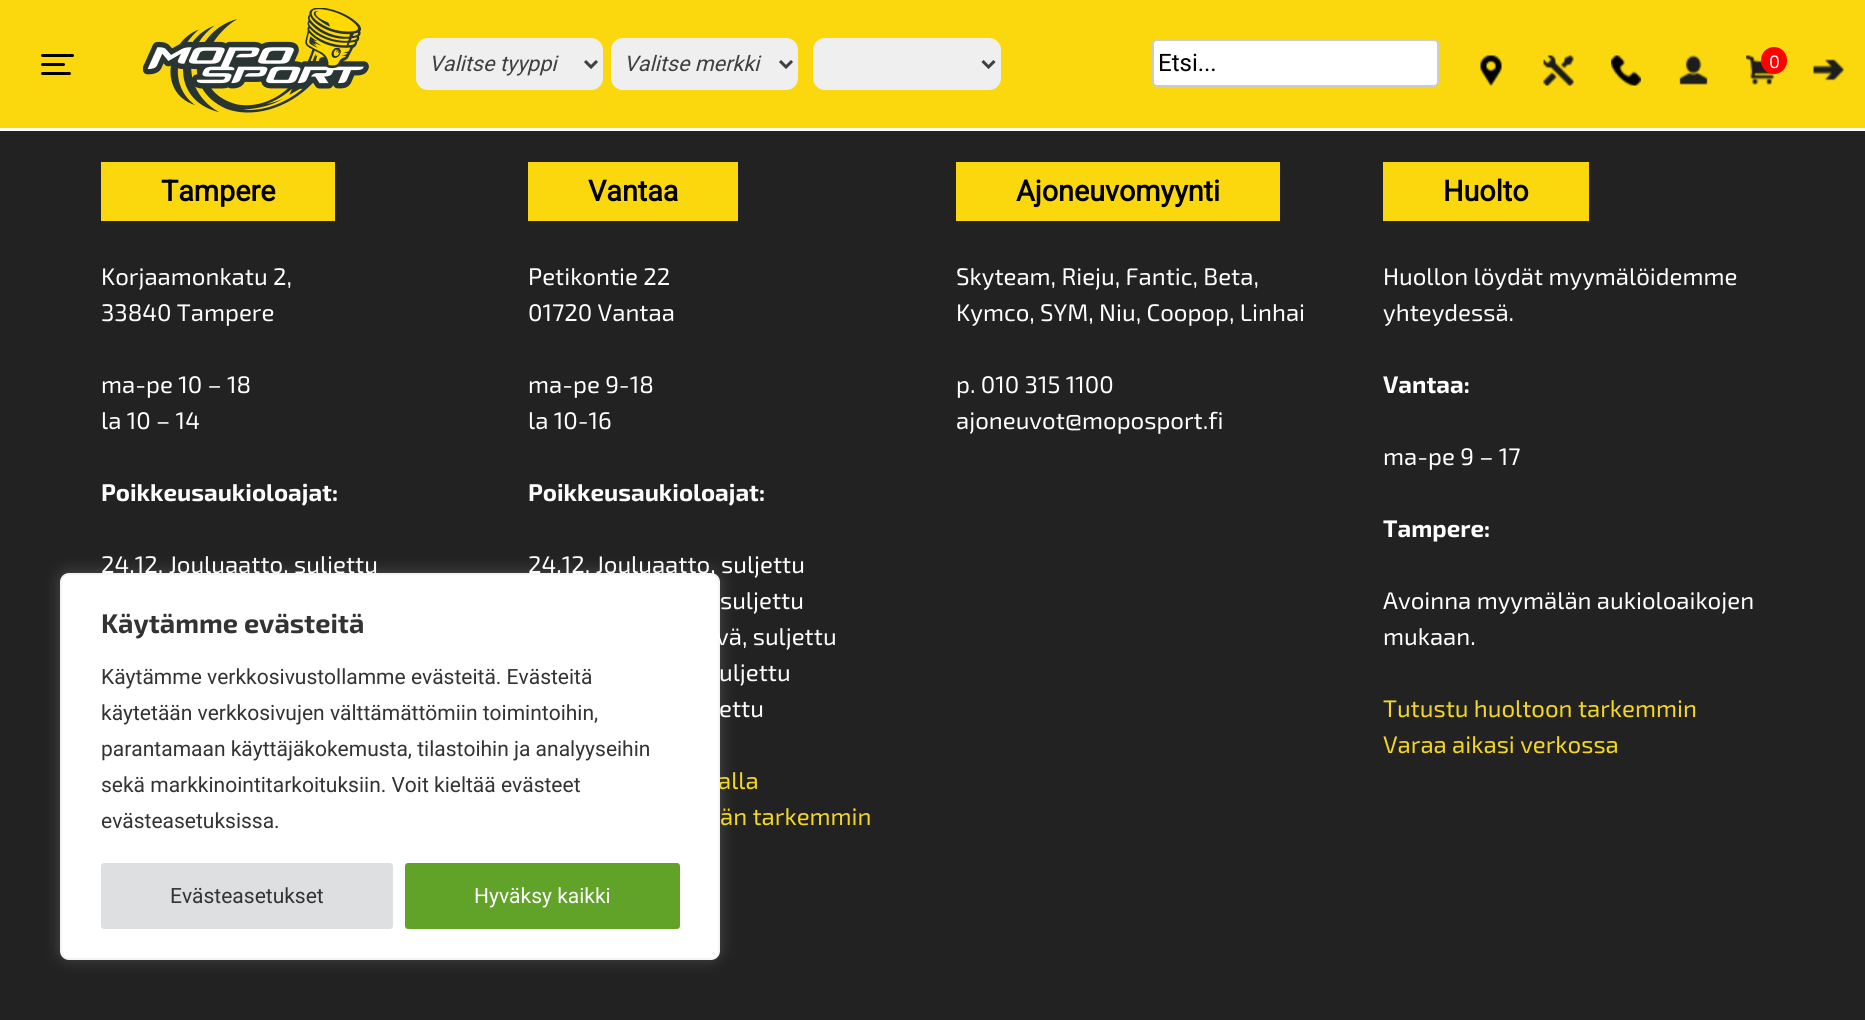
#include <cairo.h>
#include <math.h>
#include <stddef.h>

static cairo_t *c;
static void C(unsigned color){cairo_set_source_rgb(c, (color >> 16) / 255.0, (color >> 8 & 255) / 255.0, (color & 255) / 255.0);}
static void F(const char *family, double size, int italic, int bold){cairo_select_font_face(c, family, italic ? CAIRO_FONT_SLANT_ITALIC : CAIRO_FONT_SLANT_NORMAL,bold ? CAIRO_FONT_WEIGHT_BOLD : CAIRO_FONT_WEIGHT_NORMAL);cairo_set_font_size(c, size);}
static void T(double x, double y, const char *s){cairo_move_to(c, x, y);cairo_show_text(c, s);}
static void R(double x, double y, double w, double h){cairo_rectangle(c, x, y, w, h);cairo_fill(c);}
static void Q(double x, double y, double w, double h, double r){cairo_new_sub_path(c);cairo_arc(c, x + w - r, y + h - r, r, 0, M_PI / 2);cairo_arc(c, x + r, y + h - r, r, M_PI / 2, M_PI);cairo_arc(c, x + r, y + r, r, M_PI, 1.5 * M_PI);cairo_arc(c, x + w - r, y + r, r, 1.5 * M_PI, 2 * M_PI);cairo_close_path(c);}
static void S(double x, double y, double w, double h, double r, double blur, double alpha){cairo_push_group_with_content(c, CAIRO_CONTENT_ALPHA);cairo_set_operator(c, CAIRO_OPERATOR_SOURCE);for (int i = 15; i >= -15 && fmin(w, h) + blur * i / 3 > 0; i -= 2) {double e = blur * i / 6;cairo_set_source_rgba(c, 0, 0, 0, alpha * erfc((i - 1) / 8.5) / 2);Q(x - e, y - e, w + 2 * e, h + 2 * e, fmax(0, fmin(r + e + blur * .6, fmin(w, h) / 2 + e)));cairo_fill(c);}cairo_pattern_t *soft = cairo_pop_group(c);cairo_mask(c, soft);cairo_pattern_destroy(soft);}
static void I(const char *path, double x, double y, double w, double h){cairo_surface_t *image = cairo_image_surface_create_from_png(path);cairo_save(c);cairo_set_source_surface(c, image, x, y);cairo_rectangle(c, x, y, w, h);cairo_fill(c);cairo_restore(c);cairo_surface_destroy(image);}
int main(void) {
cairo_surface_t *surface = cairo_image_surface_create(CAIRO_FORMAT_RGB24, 1865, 1020);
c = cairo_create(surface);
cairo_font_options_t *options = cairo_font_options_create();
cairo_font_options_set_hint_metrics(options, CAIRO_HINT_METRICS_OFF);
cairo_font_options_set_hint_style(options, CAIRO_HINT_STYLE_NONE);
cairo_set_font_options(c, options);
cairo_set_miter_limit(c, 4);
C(0x222222);
cairo_paint(c);
C(0xfbd80e);
R(0,0,1865,128);
C(0xffffff);
R(0,128,1865,3);
C(0x000000);
Q(41,54,33,3,1.5);
cairo_fill(c);
Q(41,63,24,3,1.5);
cairo_fill(c);
Q(41,72,30,3,1.5);
cairo_fill(c);
I("1.png",143,8,226,105);
C(0xefefef);
Q(416,38,187,52,12);
cairo_fill(c);
cairo_new_path(c);
cairo_move_to(c,585,61);
cairo_line_to(c,591,67);
cairo_line_to(c,597,61);
C(0x404040);
cairo_set_line_width(c,3);
cairo_stroke(c);
F("Roboto",21.5,1,0);
T(429,71,"Valitse tyyppi");
C(0xefefef);
Q(611,38,187,52,12);
cairo_fill(c);
cairo_new_path(c);
cairo_move_to(c,780,61);
cairo_line_to(c,786,67);
cairo_line_to(c,792,61);
C(0x404040);
cairo_stroke(c);
T(624,71,"Valitse merkki");
C(0xefefef);
Q(813,38,188,52,12);
cairo_fill(c);
cairo_new_path(c);
cairo_move_to(c,982.5,61);
cairo_line_to(c,988.5,67);
cairo_line_to(c,994.5,61);
C(0x404040);
cairo_stroke(c);
C(0xffffff);
Q(1153,40,285,46,4);
cairo_fill_preserve(c);
C(0xcccccc);
cairo_set_line_width(c,2);
cairo_stroke(c);
F("Roboto",24,0,0);
C(0x000000);
T(1158,71,"Etsi...");
I("2.png",1480,55,22,31);
I("3.png",1543,55,31,31);
I("4.png",1611,55,30,31);
I("5.png",1679,55,29,30);
I("6.png",1746,55,30,30);
C(0xff0000);
Q(1761,47,26,27,13);
cairo_fill(c);
F("Exo 2",18,0,0);
C(0xffffff);
T(1769,68,"0");
I("7.png",1813,59,31,22);
C(0xacabab);
S(60,572,660,387,9,7.5,.3);
F("Exo 2",24,0,0);
C(0xf3d722);
T(718,789,"alla");
C(0xffffff);
Q(61,574,658,385,8);
cairo_fill_preserve(c);
C(0xf4f4f4);
cairo_stroke(c);
F("Exo 2",27,0,1);
C(0x333333);
T(101,633,"Käytämme evästeitä");
F("Roboto",21,0,0);
T(101,684,"Käytämme verkkosivustollamme evästeitä. Evästeitä");
T(101,720,"käytetään verkkosivujen välttämättömiin toimintoihin,");
T(101,756,"parantamaan käyttäjäkokemusta, tilastoihin ja analyyseihin");
T(101,792,"sekä markkinointitarkoituksiin. Voit kieltää evästeet");
T(101,828,"evästeasetuksissa.");
C(0xdedfe0);
Q(102.5,864.5,289,63,1.5);
cairo_fill_preserve(c);
cairo_set_line_width(c,3);
cairo_stroke(c);
C(0x333333);
T(170,903,"Evästeasetukset");
C(0x61a229);
Q(406.5,864.5,272,63,1.5);
cairo_fill_preserve(c);
cairo_stroke(c);
C(0xffffff);
T(474,903,"Hyväksy kaikki");
C(0xfbd80e);
R(101,162,234,59);
F("Roboto",28.75,0,1);
C(0x000000);
T(161,201,"Tampere");
F("Exo 2",24,0,0);
C(0xffffff);
T(101,285,"Korjaamonkatu 2,");
T(101,321,"33840 Tampere");
T(101,393,"ma-pe 10 – 18");
T(101,429,"la 10 – 14");
F("Exo 2",24,0,1);
T(101,501,"Poikkeusaukioloajat:");
F("Exo 2",24,0,0);
T(101,573,"24.12. Jouluaatto, suljettu");
C(0xfbd80e);
R(528,162,210,59);
F("Roboto",28.75,0,1);
C(0x000000);
T(588,201,"Vantaa");
F("Exo 2",24,0,0);
C(0xffffff);
T(528,285,"Petikontie 22");
T(528,321,"01720 Vantaa");
T(528,393,"ma-pe 9-18");
T(528,429,"la 10-16");
F("Exo 2",24,0,1);
T(528,501,"Poikkeusaukioloajat:");
F("Exo 2",24,0,0);
T(528,573,"24.12. Jouluaatto, suljettu");
T(720,609,"suljettu");
T(716,645,"vä, suljettu");
T(719,681,"uljettu");
T(719,717,"ettu");
C(0xf3d722);
T(720,825,"än tarkemmin");
C(0xfbd80e);
R(956,162,324,59);
F("Roboto",28.75,0,1);
C(0x000000);
T(1016,201,"Ajoneuvomyynti");
F("Exo 2",24,0,0);
C(0xffffff);
T(956,285,"Skyteam, Rieju, Fantic, Beta,");
T(956,321,"Kymco, SYM, Niu, Coopop, Linhai");
T(956,393,"p. 010 315 1100");
T(956,429,"ajoneuvot@moposport.fi");
C(0xfbd80e);
R(1383,162,206,59);
F("Roboto",28.75,0,1);
C(0x000000);
T(1443,201,"Huolto");
F("Exo 2",24,0,0);
C(0xffffff);
T(1383,285,"Huollon löydät myymälöidemme");
T(1383,321,"yhteydessä.");
F("Exo 2",24,0,1);
T(1383,393,"Vantaa:");
F("Exo 2",24,0,0);
T(1383,465,"ma-pe 9 – 17");
F("Exo 2",24,0,1);
T(1383,537,"Tampere:");
F("Exo 2",24,0,0);
T(1383,609,"Avoinna myymälän aukioloaikojen");
T(1383,645,"mukaan.");
C(0xf3d722);
T(1383,717,"Tutustu huoltoon tarkemmin");
T(1383,753,"Varaa aikasi verkossa");
cairo_surface_write_to_png(surface, "o.png");
cairo_font_options_destroy(options);
cairo_destroy(c);
cairo_surface_destroy(surface);
return 0;
}
